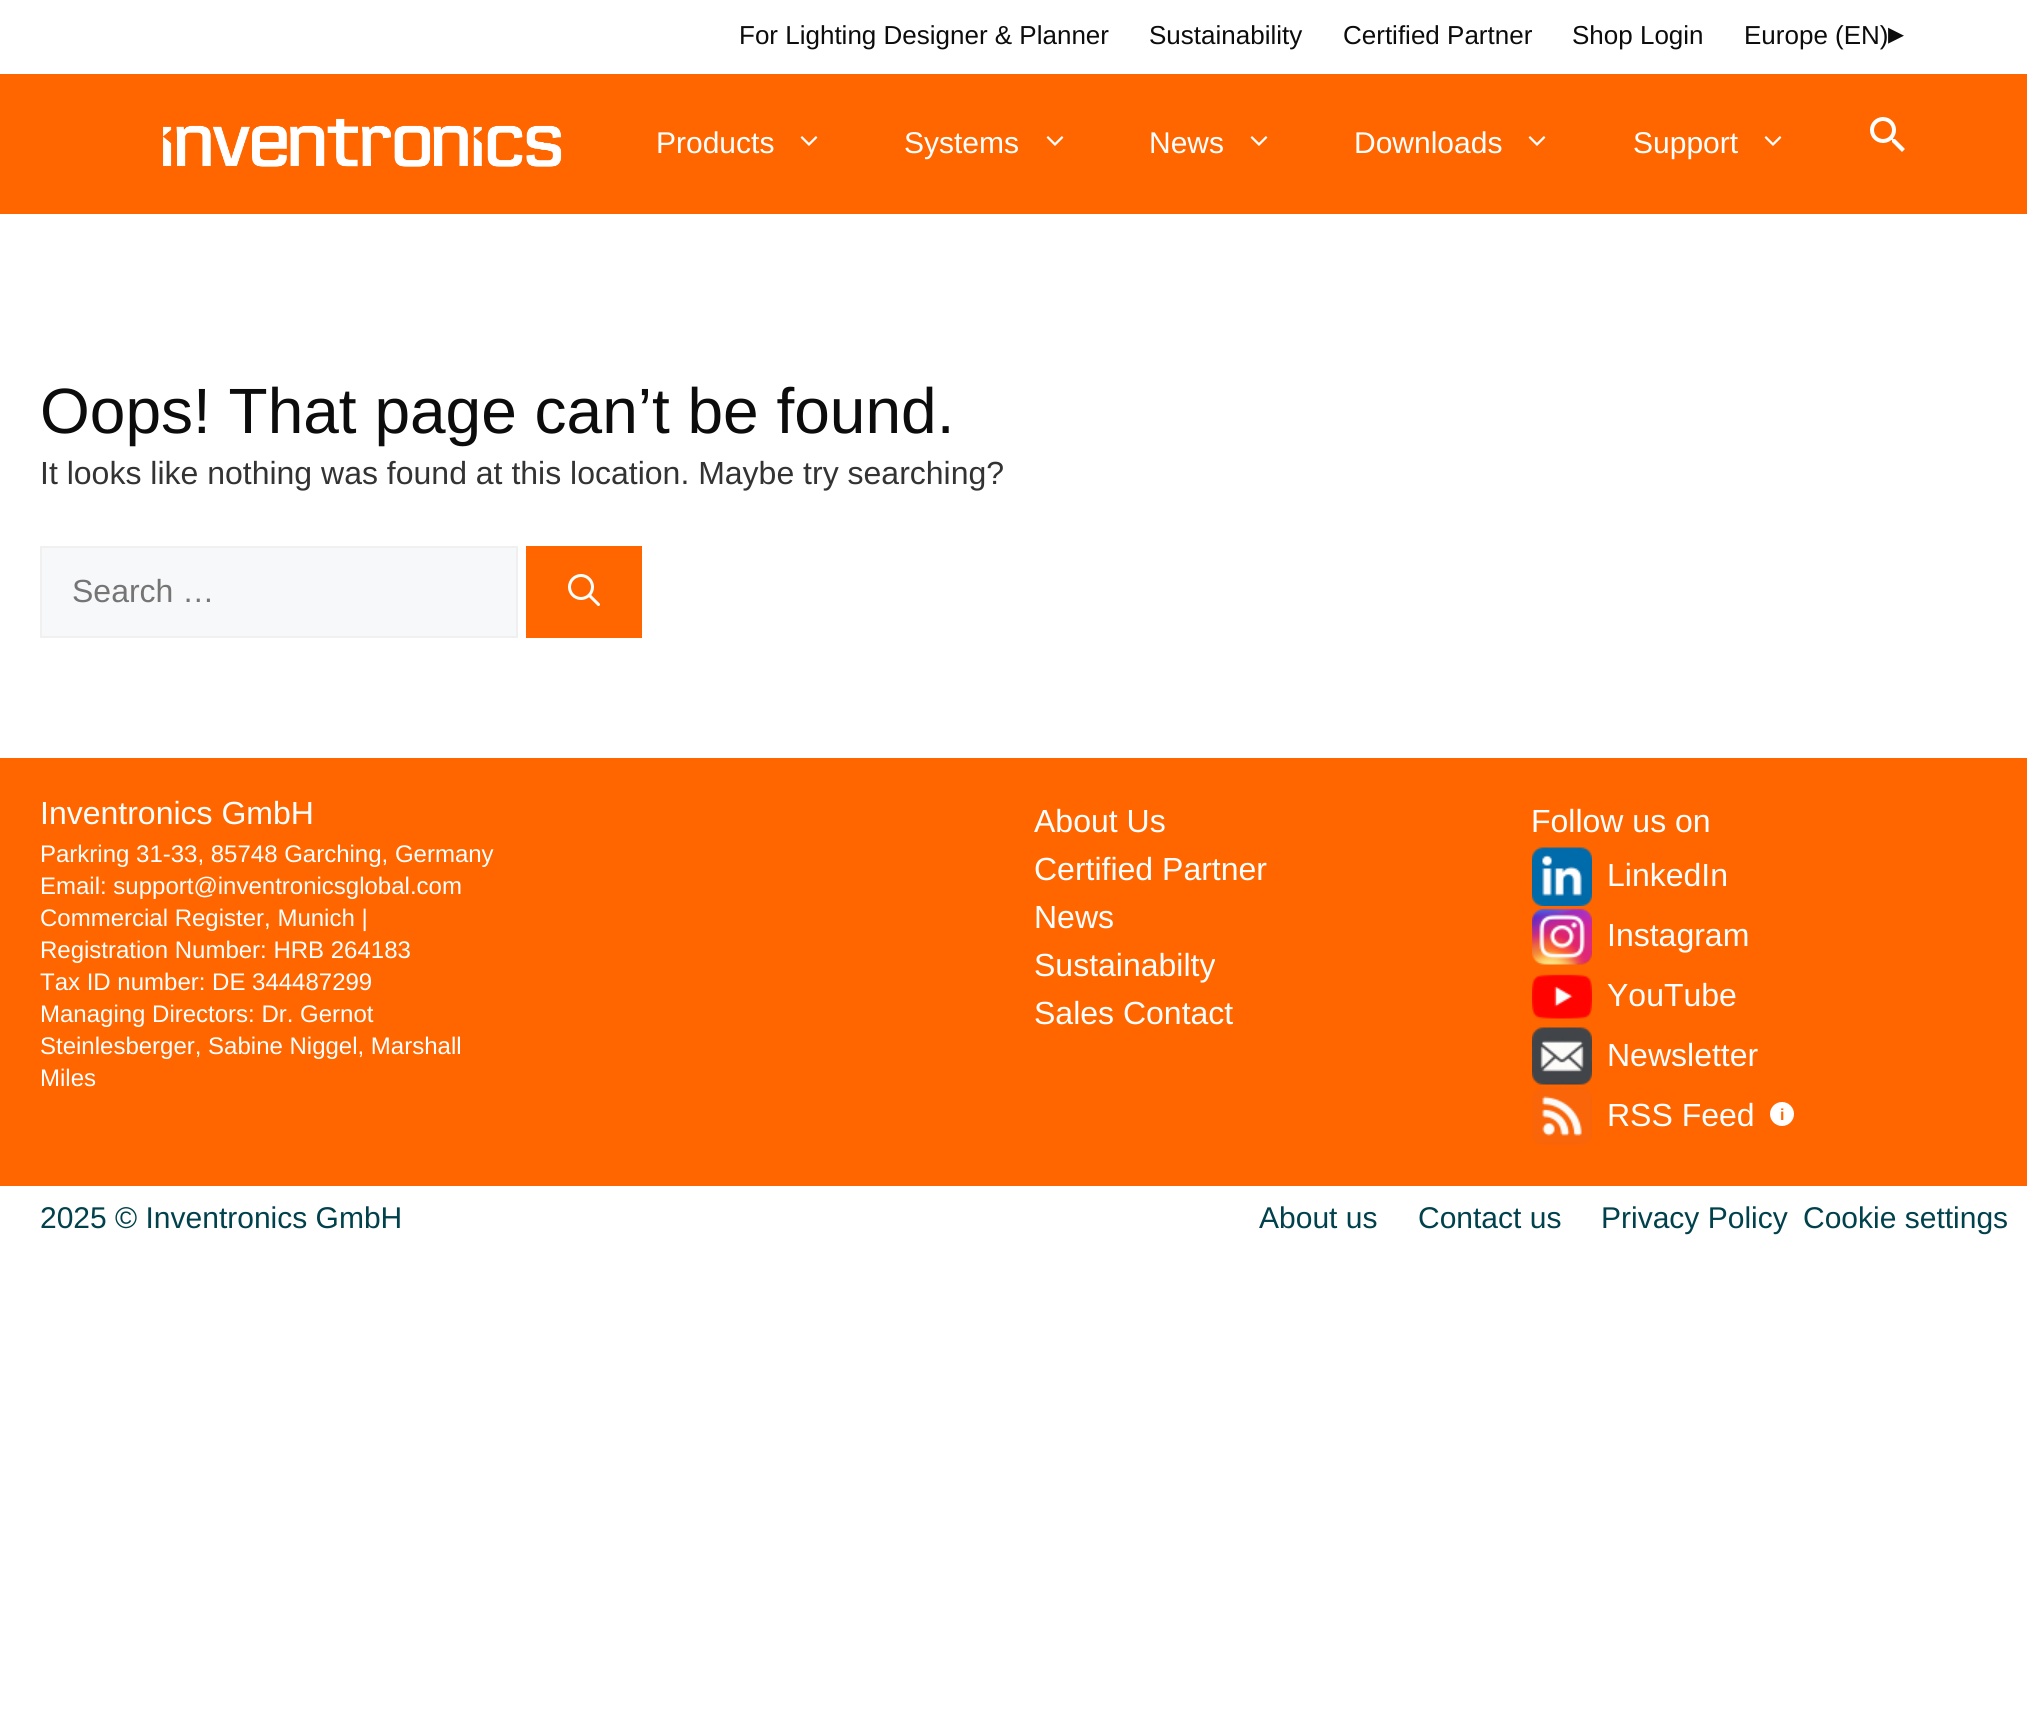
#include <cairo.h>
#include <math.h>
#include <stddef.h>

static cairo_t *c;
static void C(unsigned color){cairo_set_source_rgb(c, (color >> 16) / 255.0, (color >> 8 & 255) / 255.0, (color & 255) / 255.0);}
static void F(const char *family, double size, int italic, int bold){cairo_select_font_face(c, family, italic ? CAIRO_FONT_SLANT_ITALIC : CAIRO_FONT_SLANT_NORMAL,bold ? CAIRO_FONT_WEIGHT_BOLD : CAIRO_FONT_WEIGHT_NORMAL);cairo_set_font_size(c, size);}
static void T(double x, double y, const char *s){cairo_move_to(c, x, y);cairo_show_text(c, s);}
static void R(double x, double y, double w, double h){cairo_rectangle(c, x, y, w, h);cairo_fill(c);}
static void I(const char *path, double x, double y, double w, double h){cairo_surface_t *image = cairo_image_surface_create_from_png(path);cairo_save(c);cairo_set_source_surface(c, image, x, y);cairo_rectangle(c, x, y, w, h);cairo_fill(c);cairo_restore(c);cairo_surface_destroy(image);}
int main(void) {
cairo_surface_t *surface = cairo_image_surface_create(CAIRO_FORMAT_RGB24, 2027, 1718);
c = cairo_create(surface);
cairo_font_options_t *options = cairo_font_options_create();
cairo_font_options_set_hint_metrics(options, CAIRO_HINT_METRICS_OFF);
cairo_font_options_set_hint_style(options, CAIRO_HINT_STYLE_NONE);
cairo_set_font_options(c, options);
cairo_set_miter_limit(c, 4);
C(0xffffff);
cairo_paint(c);
F("Liberation Sans",26,0,0);
C(0x0c0c0c);
T(739,44,"For Lighting Designer & Planner");
T(1149,44,"Sustainability");
T(1343,44,"Certified Partner");
T(1572,44,"Shop Login");
T(1744,44,"Europe (EN)");
F("DejaVu Sans",32,0,0);
T(1888,44,"▸");
C(0xff6600);
R(0,74,2027,140);
I("1.png",163,118,399,49);
F("Liberation Sans",30,0,0);
C(0xffffff);
T(656,153,"Products");
I("2.png",800,136,18,10);
T(904,153,"Systems");
I("2.png",1046,136,18,10);
T(1149,153,"News");
I("2.png",1250,136,18,10);
T(1354,153,"Downloads");
I("2.png",1528,136,18,10);
T(1633,153,"Support");
I("2.png",1764,136,18,10);
I("3.png",1870,117,35,35);
F("Liberation Sans",64,0,0);
C(0x0c0c0c);
T(40,433,"Oops! That page can’t be found.");
F("Liberation Sans",32,0,0);
C(0x333333);
T(40,484,"It looks like nothing was found at this location. Maybe try searching?");
C(0xf7f8f9);
cairo_rectangle(c,41,547,476,90);
cairo_fill_preserve(c);
C(0xf0f0f0);
cairo_stroke(c);
C(0x757575);
T(72,602,"Search …");
C(0xff6600);
R(526,546,116,92);
I("4.png",568,574,32,32);
R(0,758,2027,428);
C(0xffffff);
T(40,824,"Inventronics GmbH");
F("Liberation Sans",24,0,0);
T(40,862,"Parkring 31-33, 85748 Garching, Germany");
T(40,894,"Email: support@inventronicsglobal.com");
T(40,926,"Commercial Register, Munich |");
T(40,958,"Registration Number: HRB 264183");
T(40,990,"Tax ID number: DE 344487299");
T(40,1022,"Managing Directors: Dr. Gernot");
T(40,1054,"Steinlesberger, Sabine Niggel, Marshall");
T(40,1086,"Miles");
F("Liberation Sans",32,0,0);
T(1034,832,"About Us");
T(1034,880,"Certified Partner");
T(1034,928,"News");
T(1034,976,"Sustainabilty");
T(1034,1024,"Sales Contact");
T(1531,832,"Follow us on");
I("5.png",1532,847,60,59);
T(1607,886,"LinkedIn");
I("6.png",1532,908,60,57);
T(1607,946,"Instagram");
I("7.png",1532,974,60,45);
T(1607,1006,"YouTube");
I("8.png",1532,1027,60,58);
T(1607,1066,"Newsletter");
I("9.png",1532,1087,60,58);
T(1607,1126,"RSS Feed");
cairo_new_path(c);
cairo_arc(c,1782,1114,12,0,2 * M_PI);
cairo_fill(c);
F("Liberation Sans",16,0,1);
C(0xff6600);
T(1780,1120,"i");
F("Liberation Sans",30,0,0);
C(0x00414c);
T(40,1228,"2025 © Inventronics GmbH");
T(1259,1228,"About us");
T(1418,1228,"Contact us");
T(1601,1228,"Privacy Policy");
T(1803,1228,"Cookie settings");
cairo_surface_write_to_png(surface, "o.png");
cairo_font_options_destroy(options);
cairo_destroy(c);
cairo_surface_destroy(surface);
return 0;
}
